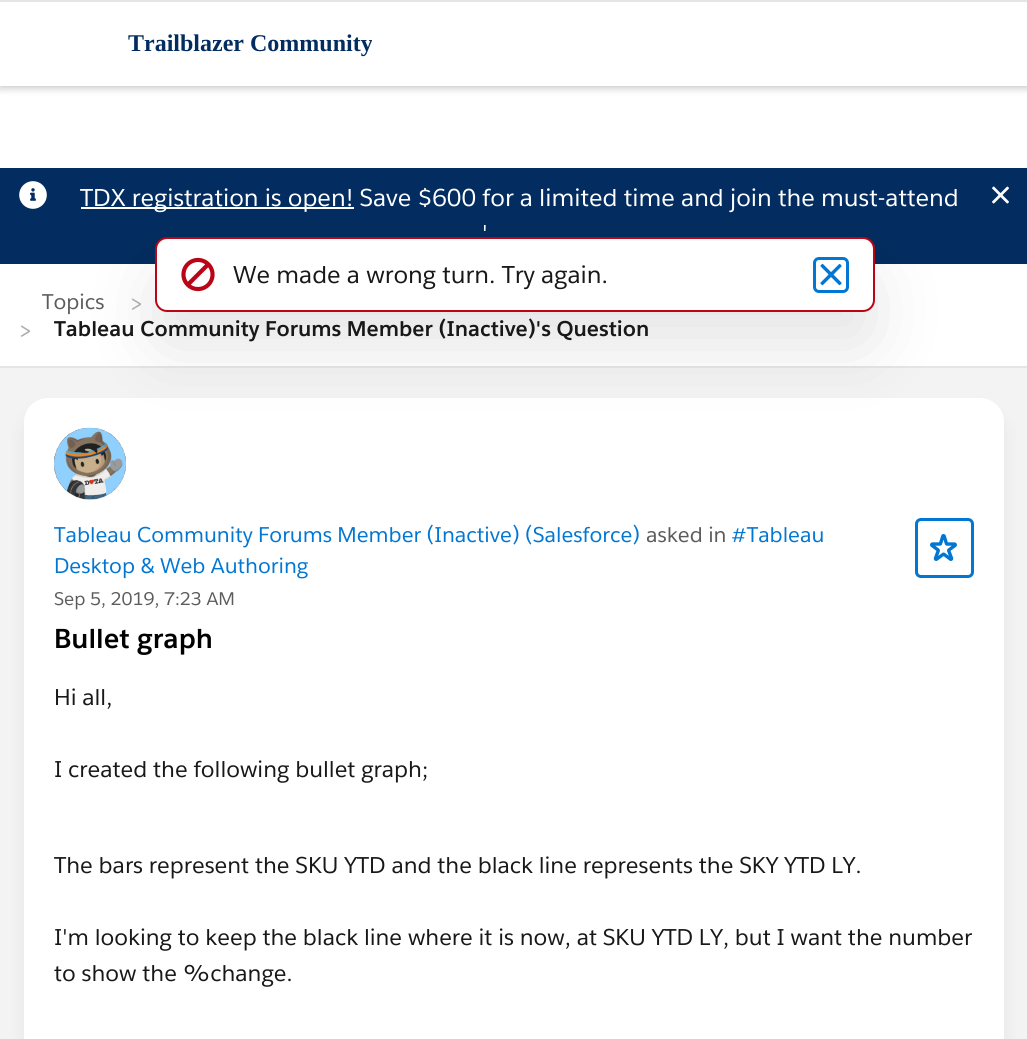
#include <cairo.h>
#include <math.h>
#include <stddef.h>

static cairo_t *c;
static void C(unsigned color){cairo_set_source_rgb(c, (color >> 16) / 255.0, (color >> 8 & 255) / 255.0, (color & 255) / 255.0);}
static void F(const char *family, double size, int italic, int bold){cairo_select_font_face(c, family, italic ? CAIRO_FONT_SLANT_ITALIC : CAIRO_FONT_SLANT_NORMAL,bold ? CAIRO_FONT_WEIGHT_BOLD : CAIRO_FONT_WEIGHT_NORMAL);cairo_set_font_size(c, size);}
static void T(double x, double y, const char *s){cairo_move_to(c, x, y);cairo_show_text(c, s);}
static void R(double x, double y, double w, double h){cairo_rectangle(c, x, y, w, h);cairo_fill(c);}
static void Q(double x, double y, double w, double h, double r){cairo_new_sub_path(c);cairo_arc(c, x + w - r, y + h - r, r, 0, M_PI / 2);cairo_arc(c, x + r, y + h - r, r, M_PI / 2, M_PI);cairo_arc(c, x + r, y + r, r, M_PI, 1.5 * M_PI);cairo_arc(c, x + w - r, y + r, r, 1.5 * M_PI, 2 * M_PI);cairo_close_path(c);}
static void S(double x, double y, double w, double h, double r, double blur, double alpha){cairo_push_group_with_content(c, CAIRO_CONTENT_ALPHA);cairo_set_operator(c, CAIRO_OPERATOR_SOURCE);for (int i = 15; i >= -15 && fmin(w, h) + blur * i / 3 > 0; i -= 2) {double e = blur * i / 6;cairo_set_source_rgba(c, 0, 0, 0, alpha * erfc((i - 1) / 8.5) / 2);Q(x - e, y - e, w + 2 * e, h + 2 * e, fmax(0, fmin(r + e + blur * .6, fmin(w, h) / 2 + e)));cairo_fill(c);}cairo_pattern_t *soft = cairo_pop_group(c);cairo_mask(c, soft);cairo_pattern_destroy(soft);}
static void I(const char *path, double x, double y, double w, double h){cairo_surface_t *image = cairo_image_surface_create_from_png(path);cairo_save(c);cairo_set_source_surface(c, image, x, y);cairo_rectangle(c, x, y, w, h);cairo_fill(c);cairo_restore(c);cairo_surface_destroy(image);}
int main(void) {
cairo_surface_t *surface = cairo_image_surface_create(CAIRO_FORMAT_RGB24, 1027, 1039);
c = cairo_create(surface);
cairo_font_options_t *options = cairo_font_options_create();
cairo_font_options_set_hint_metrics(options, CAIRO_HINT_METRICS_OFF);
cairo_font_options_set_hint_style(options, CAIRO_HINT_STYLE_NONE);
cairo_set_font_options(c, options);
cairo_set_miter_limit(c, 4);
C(0xffffff);
cairo_paint(c);
C(0x181818);
S(-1,2,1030,88,0,3,.16);
S(0,0,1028,86,0,1.5,.08);
C(0xffffff);
R(0,2,1027,84);
C(0xe5e5e5);
R(0,0,1027,2);
cairo_save(c);
cairo_rectangle(c,128,26,244,36);
cairo_clip(c);
F("Liberation Serif",24,0,1);
C(0x032d60);
T(128,51,"Trailblazer Community");
cairo_restore(c);
C(0x032d60);
R(0,168,1027,96);
I("1.png",19,181,28,28);
C(0xffffff);
R(81,207,273,2);
F("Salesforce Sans",24,0,0);
T(80,206,"TDX registration is open! Save $600 for a limited time and join the must-attend");
T(482,242,"'");
I("2.png",992,186,17,18);
C(0xf3f3f3);
R(0,368,1027,671);
C(0xe5e5e5);
R(0,366,1027,2);
C(0x181818);
S(27,413,974,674,21,9,.09);
C(0xffffff);
Q(24,398,980,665,24);
cairo_fill(c);
C(0xe5e5e5);
cairo_arc(c,90,464,36,0,2 * M_PI);
cairo_fill(c);
I("5.png",54,427,72,73);
C(0x181818);
S(158,276,714,69,9,36,.12);
C(0xffffff);
Q(156,238,718,73,11);
cairo_fill_preserve(c);
C(0xba0517);
cairo_stroke(c);
I("3.png",181,257,34,35);
C(0x181818);
T(233,283,"We made a wrong turn. Try again.");
Q(814.5,258.5,33,33,4.5);
C(0x0176d3);
cairo_set_line_width(c,3);
cairo_stroke(c);
I("4.png",820,263,22,23);
F("Salesforce Sans",21,0,0);
C(0x5c5c5c);
T(42,309,"Topics");
F("Salesforce Sans",24,0,0);
C(0xaeaeae);
T(129,311,">");
T(18,338,">");
F("Salesforce Sans",21,0,1);
C(0x181818);
T(54,336,"Tableau Community Forums Member (Inactive)'s Question");
F("Salesforce Sans",21,0,0);
C(0x0176d3);
T(54,542,"Tableau Community Forums Member (Inactive) (Salesforce)");
C(0x5c5c5c);
T(646,542,"asked in");
C(0x0176d3);
T(731,542,"#Tableau");
T(54,573,"Desktop & Web Authoring");
Q(916.5,519.5,56,57,4.5);
cairo_stroke(c);
I("6.png",930,534,27,27);
F("Salesforce Sans",18,0,0);
C(0x5c5c5c);
T(54,605,"Sep 5, 2019, 7:23 AM");
F("Salesforce Sans",27,0,1);
C(0x000000);
T(54,648,"Bullet graph");
F("Salesforce Sans",22.5,0,0);
C(0x181818);
T(54,705,"Hi all,");
T(54,777,"I created the following bullet graph;");
T(54,873,"The bars represent the SKU YTD and the black line represents the SKY YTD LY.");
T(54,945,"I'm looking to keep the black line where it is now, at SKU YTD LY, but I want the number");
T(54,981,"to show the %change.");
cairo_surface_write_to_png(surface, "o.png");
cairo_font_options_destroy(options);
cairo_destroy(c);
cairo_surface_destroy(surface);
return 0;
}
